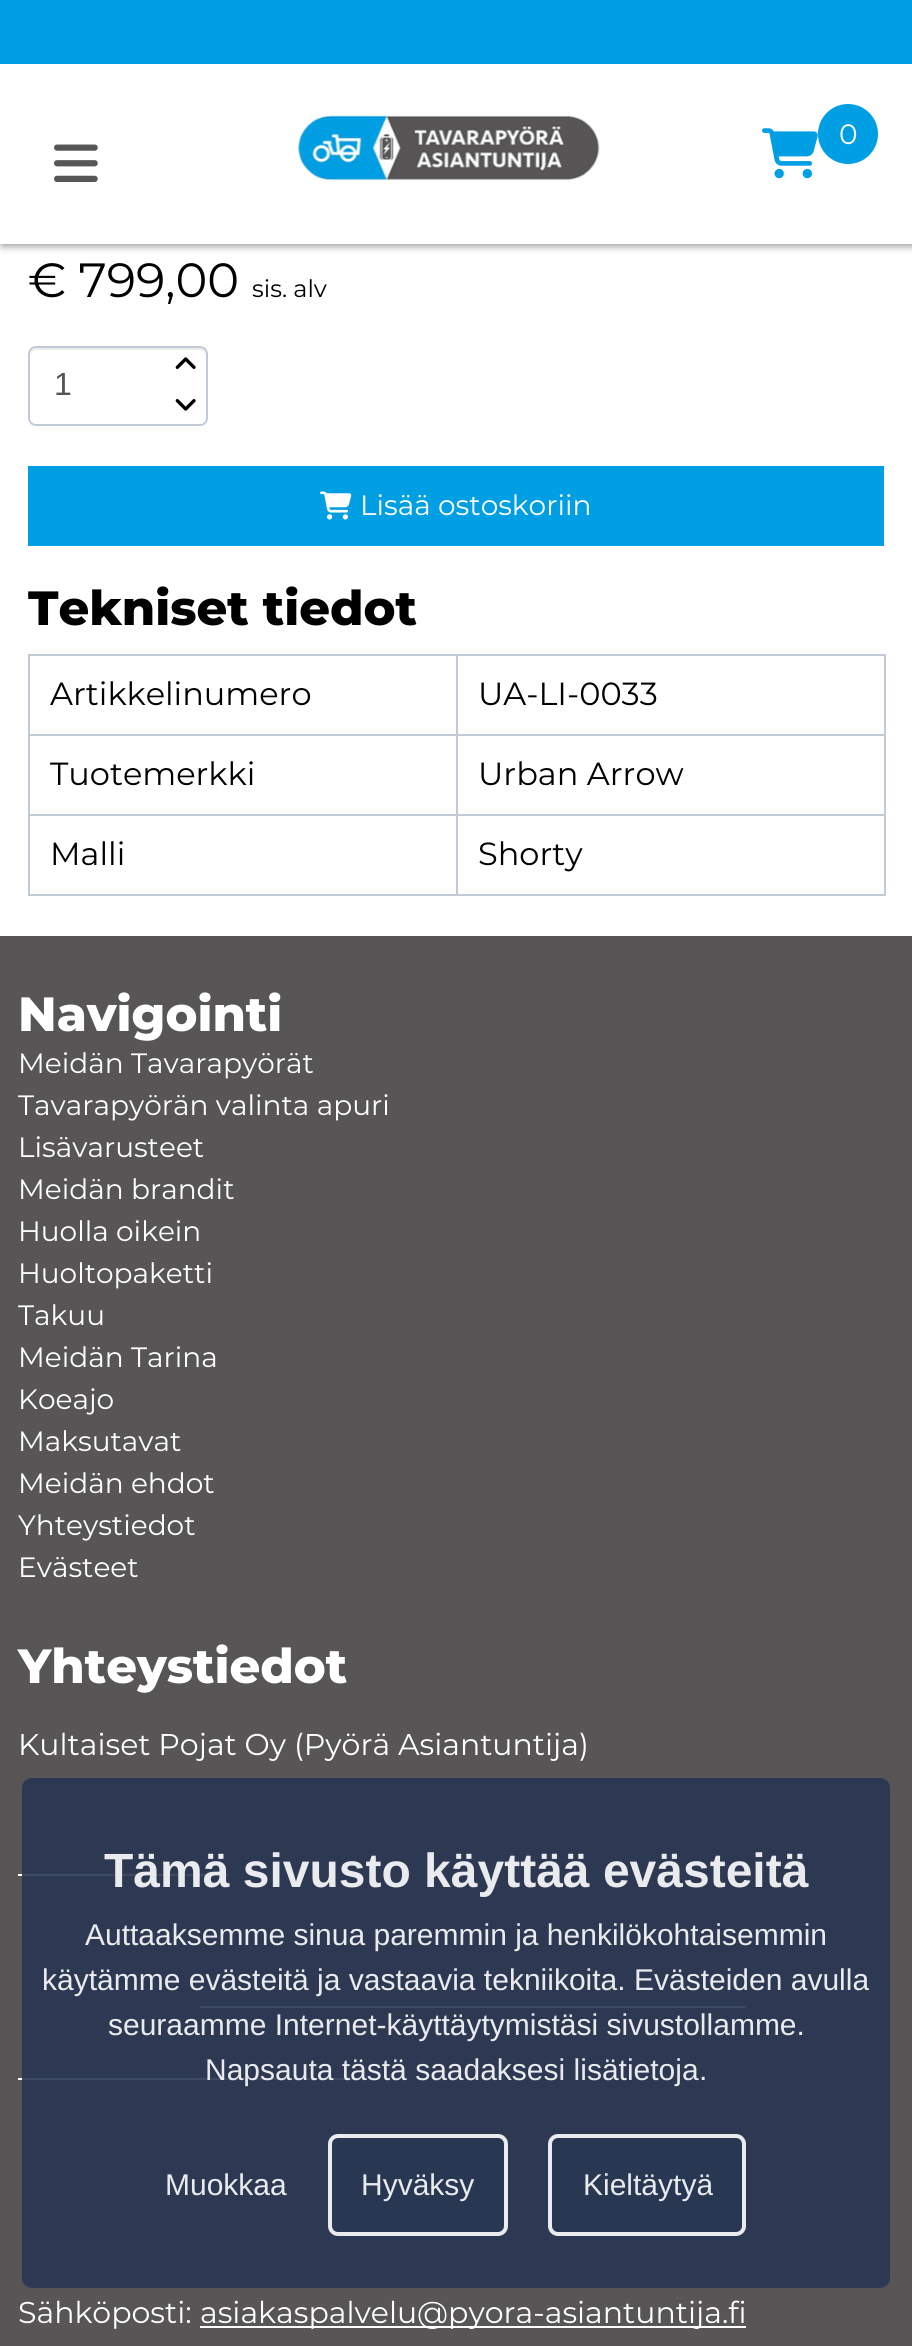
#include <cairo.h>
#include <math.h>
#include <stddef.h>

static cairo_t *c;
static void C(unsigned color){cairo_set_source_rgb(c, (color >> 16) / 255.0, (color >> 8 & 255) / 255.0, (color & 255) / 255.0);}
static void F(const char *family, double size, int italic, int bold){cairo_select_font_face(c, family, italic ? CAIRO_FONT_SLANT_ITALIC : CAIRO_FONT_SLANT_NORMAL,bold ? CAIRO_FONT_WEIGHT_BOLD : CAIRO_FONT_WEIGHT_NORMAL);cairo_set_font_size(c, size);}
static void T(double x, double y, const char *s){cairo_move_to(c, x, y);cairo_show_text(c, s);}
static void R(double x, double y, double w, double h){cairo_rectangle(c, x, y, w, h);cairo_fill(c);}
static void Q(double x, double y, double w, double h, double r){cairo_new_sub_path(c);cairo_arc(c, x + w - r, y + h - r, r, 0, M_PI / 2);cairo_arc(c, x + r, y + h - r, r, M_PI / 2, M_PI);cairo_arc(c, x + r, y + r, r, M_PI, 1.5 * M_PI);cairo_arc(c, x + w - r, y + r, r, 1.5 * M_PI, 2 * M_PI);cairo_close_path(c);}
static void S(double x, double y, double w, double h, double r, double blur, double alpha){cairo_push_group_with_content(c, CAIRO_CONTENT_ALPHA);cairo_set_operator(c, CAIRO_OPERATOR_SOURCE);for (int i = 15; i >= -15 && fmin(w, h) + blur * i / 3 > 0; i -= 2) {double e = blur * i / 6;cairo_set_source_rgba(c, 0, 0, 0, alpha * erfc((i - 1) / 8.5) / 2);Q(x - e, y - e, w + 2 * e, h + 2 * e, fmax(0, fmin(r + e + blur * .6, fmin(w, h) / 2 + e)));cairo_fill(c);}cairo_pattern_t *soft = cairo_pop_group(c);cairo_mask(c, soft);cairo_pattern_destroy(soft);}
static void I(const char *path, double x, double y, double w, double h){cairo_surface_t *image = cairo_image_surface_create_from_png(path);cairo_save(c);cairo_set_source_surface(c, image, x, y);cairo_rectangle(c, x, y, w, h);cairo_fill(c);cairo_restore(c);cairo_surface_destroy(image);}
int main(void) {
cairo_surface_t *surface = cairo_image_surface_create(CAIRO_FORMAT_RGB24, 912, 2346);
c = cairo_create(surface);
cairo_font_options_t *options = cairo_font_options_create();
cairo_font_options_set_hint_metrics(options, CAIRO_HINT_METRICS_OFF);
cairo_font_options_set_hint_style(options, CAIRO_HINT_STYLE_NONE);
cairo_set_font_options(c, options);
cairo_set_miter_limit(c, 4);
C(0xffffff);
cairo_paint(c);
C(0x939393);
S(2,2,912,244,0,4,1);
C(0x009fe3);
R(0,0,912,64);
C(0xffffff);
R(0,64,912,180);
I("1.png",298,115,302,66);
I("2.png",762,128,56,51);
C(0x009fe3);
cairo_arc(c,848,134,30,0,2 * M_PI);
cairo_fill(c);
F("Montserrat",28,0,0);
C(0xffffff);
T(839,144,"0");
I("3.png",54,144,44,38);
F("Montserrat",48,0,0);
C(0x000000);
T(28,297,"€ 799,00");
F("Montserrat",24,0,0);
T(252,297,"sis. alv");
C(0xececec);
cairo_new_path(c);
cairo_move_to(c,36,350);
cairo_line_to(c,200,350);
cairo_curve_to(c,203,350,206,353,206,356);
cairo_line_to(c,206,354);
cairo_curve_to(c,206,351,203,348,200,348);
cairo_line_to(c,36,348);
cairo_curve_to(c,33,348,30,351,30,354);
cairo_line_to(c,30,356);
cairo_curve_to(c,30,353,33,350,36,350);
cairo_close_path(c);
cairo_fill(c);
Q(29,347,178,78,7);
C(0xc2cad8);
cairo_stroke(c);
I("4.png",175,357,21,12);
F("Liberation Sans",32,0,0);
C(0x555555);
T(54,395,"1");
I("5.png",175,399,21,12);
C(0x009fe3);
R(28,466,856,80);
I("6.png",320,491,32,29);
F("Montserrat",28,0,0);
C(0xffffff);
T(360,515,"Lisää ostoskoriin");
F("Montserrat ExtraBold",48,0,0);
C(0x000000);
T(28,625,"Tekniset tiedot");
C(0xc2cad8);
R(28,654,858,2);
R(884,654,2,242);
R(28,894,858,2);
R(28,654,2,242);
F("Montserrat",32,0,0);
C(0x000000);
T(50,705,"Artikkelinumero");
C(0xc2cad8);
R(456,734,430,2);
R(456,814,430,2);
R(456,814,2,82);
R(28,814,430,2);
R(456,734,2,82);
R(28,734,430,2);
R(456,654,2,82);
C(0x000000);
T(478,705,"UA-LI-0033");
T(50,785,"Tuotemerkki");
T(478,785,"Urban Arrow");
T(50,865,"Malli");
T(478,865,"Shorty");
C(0x575556);
R(0,936,912,1410);
F("Montserrat ExtraBold",48,0,0);
C(0xffffff);
T(18,1031,"Navigointi");
F("Montserrat",28,0,0);
T(18,1073,"Meidän Tavarapyörät");
T(18,1115,"Tavarapyörän valinta apuri");
T(18,1157,"Lisävarusteet");
T(18,1199,"Meidän brandit");
T(18,1241,"Huolla oikein");
T(18,1283,"Huoltopaketti");
T(18,1325,"Takuu");
T(18,1367,"Meidän Tarina");
T(18,1409,"Koeajo");
T(18,1451,"Maksutavat");
T(18,1493,"Meidän ehdot");
T(18,1535,"Yhteystiedot");
T(18,1577,"Evästeet");
F("Montserrat ExtraBold",48,0,0);
T(18,1683,"Yhteystiedot");
F("Montserrat",30,0,0);
T(18,1755,"Kultaiset Pojat Oy (Pyörä Asiantuntija)");
R(18,1874,210,2);
R(200,2006,546,2);
R(18,2078,340,2);
T(18,2323,"Sähköposti:");
R(200,2326,546,2);
T(200,2323,"asiakaspalvelu@pyora-asiantuntija.fi");
cairo_set_source_rgba(c,0.157,0.216,0.322,0.9);
Q(22,1778,868,510,10);
cairo_fill(c);
F("Liberation Sans",48,0,1);
C(0xeaebee);
T(104,1887,"Tämä sivusto käyttää evästeitä");
F("Liberation Sans",30,0,0);
T(85,1945,"Auttaaksemme sinua paremmin ja henkilökohtaisemmin");
T(42,1990,"käytämme evästeitä ja vastaavia tekniikoita. Evästeiden avulla");
T(108,2035,"seuraamme Internet-käyttäytymistäsi sivustollamme.");
T(205,2080,"Napsauta tästä saadaksesi lisätietoja");
T(699,2080,".");
T(165,2195,"Muokkaa");
cairo_set_source_rgba(c,0.157,0.216,0.322,0.9);
Q(328,2134,180,102,10);
cairo_fill(c);
Q(330,2136,176,98,8);
cairo_set_source_rgba(c,1,1,1,0.9);
cairo_set_line_width(c,4);
cairo_stroke(c);
C(0xeaebee);
T(361,2195,"Hyväksy");
cairo_set_source_rgba(c,0.157,0.216,0.322,0.9);
Q(548,2134,198,102,10);
cairo_fill(c);
Q(550,2136,194,98,8);
cairo_set_source_rgba(c,1,1,1,0.9);
cairo_stroke(c);
C(0xeaebee);
T(583,2195,"Kieltäytyä");
cairo_surface_write_to_png(surface, "o.png");
cairo_font_options_destroy(options);
cairo_destroy(c);
cairo_surface_destroy(surface);
return 0;
}
